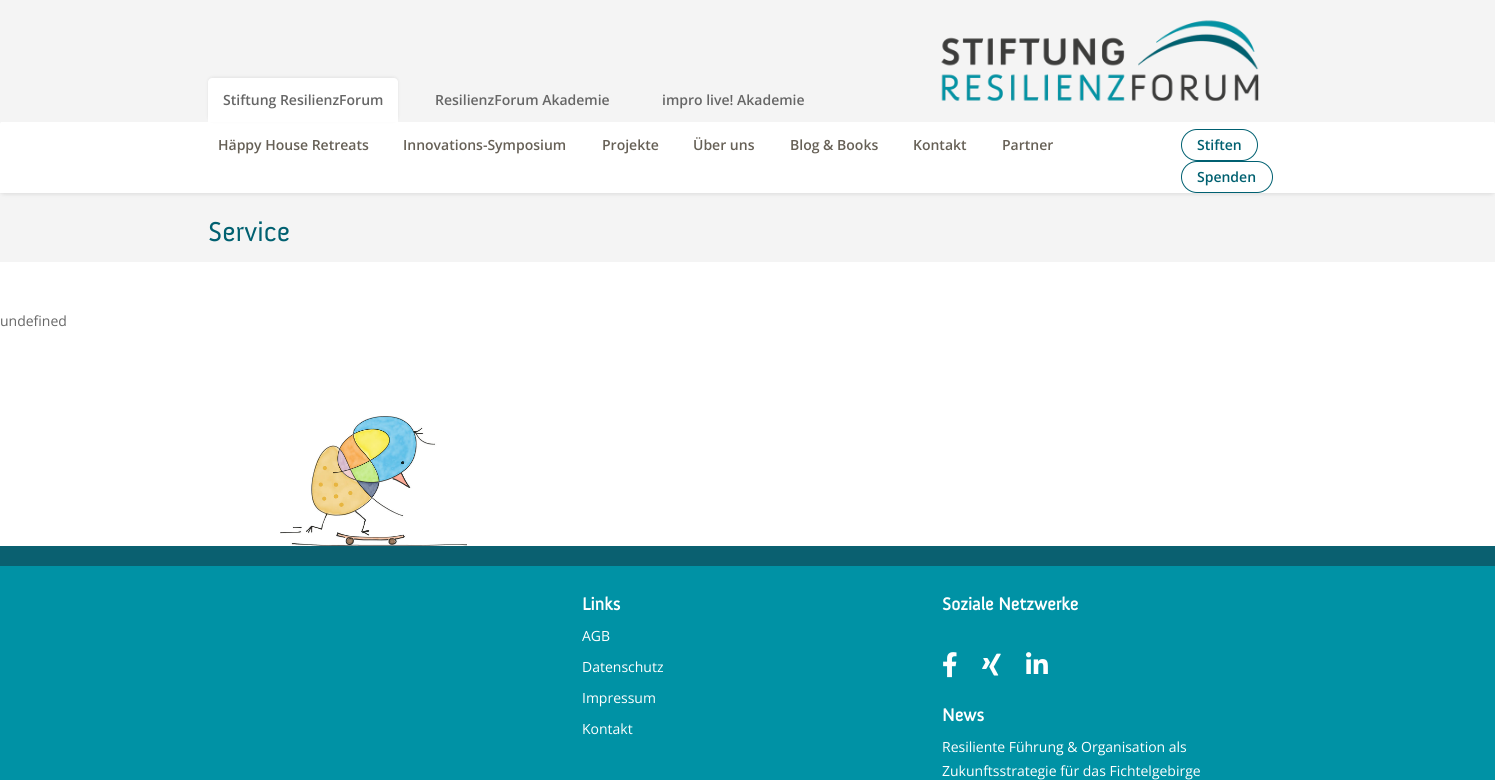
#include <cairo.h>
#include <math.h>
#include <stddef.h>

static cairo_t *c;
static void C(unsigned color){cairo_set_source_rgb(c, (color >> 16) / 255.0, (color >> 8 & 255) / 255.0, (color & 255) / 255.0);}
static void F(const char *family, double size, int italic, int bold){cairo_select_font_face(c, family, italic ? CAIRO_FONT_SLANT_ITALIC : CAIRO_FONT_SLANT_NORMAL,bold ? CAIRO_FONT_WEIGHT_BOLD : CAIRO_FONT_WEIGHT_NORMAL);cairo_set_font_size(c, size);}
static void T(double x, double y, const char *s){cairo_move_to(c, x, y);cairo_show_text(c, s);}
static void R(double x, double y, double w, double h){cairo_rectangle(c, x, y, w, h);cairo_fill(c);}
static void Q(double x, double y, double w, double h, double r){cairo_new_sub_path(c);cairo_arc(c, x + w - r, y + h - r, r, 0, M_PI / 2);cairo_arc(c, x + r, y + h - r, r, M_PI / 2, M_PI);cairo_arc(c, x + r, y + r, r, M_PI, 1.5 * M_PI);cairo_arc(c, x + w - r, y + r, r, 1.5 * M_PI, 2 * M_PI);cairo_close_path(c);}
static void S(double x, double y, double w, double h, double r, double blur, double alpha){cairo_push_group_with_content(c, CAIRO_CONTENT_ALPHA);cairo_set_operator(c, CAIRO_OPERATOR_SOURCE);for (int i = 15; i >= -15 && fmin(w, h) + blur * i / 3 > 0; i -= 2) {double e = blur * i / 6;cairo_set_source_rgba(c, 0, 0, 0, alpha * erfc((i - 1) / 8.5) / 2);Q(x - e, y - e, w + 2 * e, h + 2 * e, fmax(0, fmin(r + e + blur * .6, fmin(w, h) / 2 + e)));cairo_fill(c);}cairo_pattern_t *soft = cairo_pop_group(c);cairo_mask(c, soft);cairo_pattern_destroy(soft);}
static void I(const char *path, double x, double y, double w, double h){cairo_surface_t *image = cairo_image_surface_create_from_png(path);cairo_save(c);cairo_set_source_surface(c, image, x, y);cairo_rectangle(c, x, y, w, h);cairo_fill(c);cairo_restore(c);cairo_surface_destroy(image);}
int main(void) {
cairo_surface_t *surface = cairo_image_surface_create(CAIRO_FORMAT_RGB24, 1495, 780);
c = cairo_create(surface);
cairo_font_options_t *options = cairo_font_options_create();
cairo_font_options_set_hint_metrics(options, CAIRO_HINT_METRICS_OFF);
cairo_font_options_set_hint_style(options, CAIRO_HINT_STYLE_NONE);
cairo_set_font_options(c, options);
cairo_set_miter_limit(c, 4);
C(0xffffff);
cairo_paint(c);
C(0xf4f4f4);
R(0,193,1495,69);
C(0x000000);
S(0,120,1495,73,4,2.5,.15);
C(0xffffff);
cairo_new_path(c);
cairo_move_to(c,4,120);
cairo_line_to(c,1491,120);
cairo_curve_to(c,1493,120,1495,122,1495,124);
cairo_line_to(c,1495,193);
cairo_line_to(c,0,193);
cairo_line_to(c,0,124);
cairo_curve_to(c,0,122,2,120,4,120);
cairo_close_path(c);
cairo_fill(c);
C(0xf4f4f4);
R(0,0,1495,122);
C(0x000000);
S(210,79,186,40,2,2.5,.15);
C(0xffffff);
cairo_new_path(c);
cairo_move_to(c,212,78);
cairo_line_to(c,394,78);
cairo_curve_to(c,396,78,398,80,398,82);
cairo_line_to(c,398,122);
cairo_line_to(c,208,122);
cairo_line_to(c,208,82);
cairo_curve_to(c,208,80,210,78,212,78);
cairo_close_path(c);
cairo_fill(c);
F("Open Sans SemiBold",14,0,0);
C(0x666666);
T(223,105,"Stiftung ResilienzForum");
T(435,105,"ResilienzForum Akademie");
T(662,105,"impro live! Akademie");
I("1.png",941,20,318,82);
C(0x666056);
T(218,150,"Häppy House Retreats");
T(403,150,"Innovations-Symposium");
T(602,150,"Projekte");
T(693,150,"Über uns");
T(790,150,"Blog & Books");
T(913,150,"Kontakt");
T(1002,150,"Partner");
Q(1181.5,129.5,76,31,15.5);
C(0x006071);
cairo_set_line_width(c,1);
cairo_stroke(c);
C(0x006070);
T(1197,150,"Stiften");
Q(1181.5,161.5,91,31,15.5);
C(0x006071);
cairo_stroke(c);
C(0x006070);
T(1197,182,"Spenden");
F("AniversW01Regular",28,0,0);
T(208,241,"Service");
F("Open Sans",14,0,0);
C(0x666666);
T(0,326,"undefined");
C(0x0092a5);
R(0,566,1495,214);
C(0x0a6070);
R(0,546,1495,20);
I("2.png",280,416,187,130);
F("AniversW01Regular",18,0,1);
C(0xffffff);
T(582,610,"Links");
F("Open Sans",14,0,0);
T(582,641,"AGB");
T(582,672,"Datenschutz");
T(582,703,"Impressum");
T(582,734,"Kontakt");
F("AniversW01Regular",18,0,1);
T(942,610,"Soziale Netzwerke");
I("3.png",943,652,14,26);
I("4.png",982,653,19,23);
I("5.png",1026,652,22,22);
T(942,721,"News");
F("Open Sans",14,0,0);
T(942,752,"Resiliente Führung & Organisation als");
T(942,776,"Zukunftsstrategie für das Fichtelgebirge");
cairo_surface_write_to_png(surface, "o.png");
cairo_font_options_destroy(options);
cairo_destroy(c);
cairo_surface_destroy(surface);
return 0;
}
